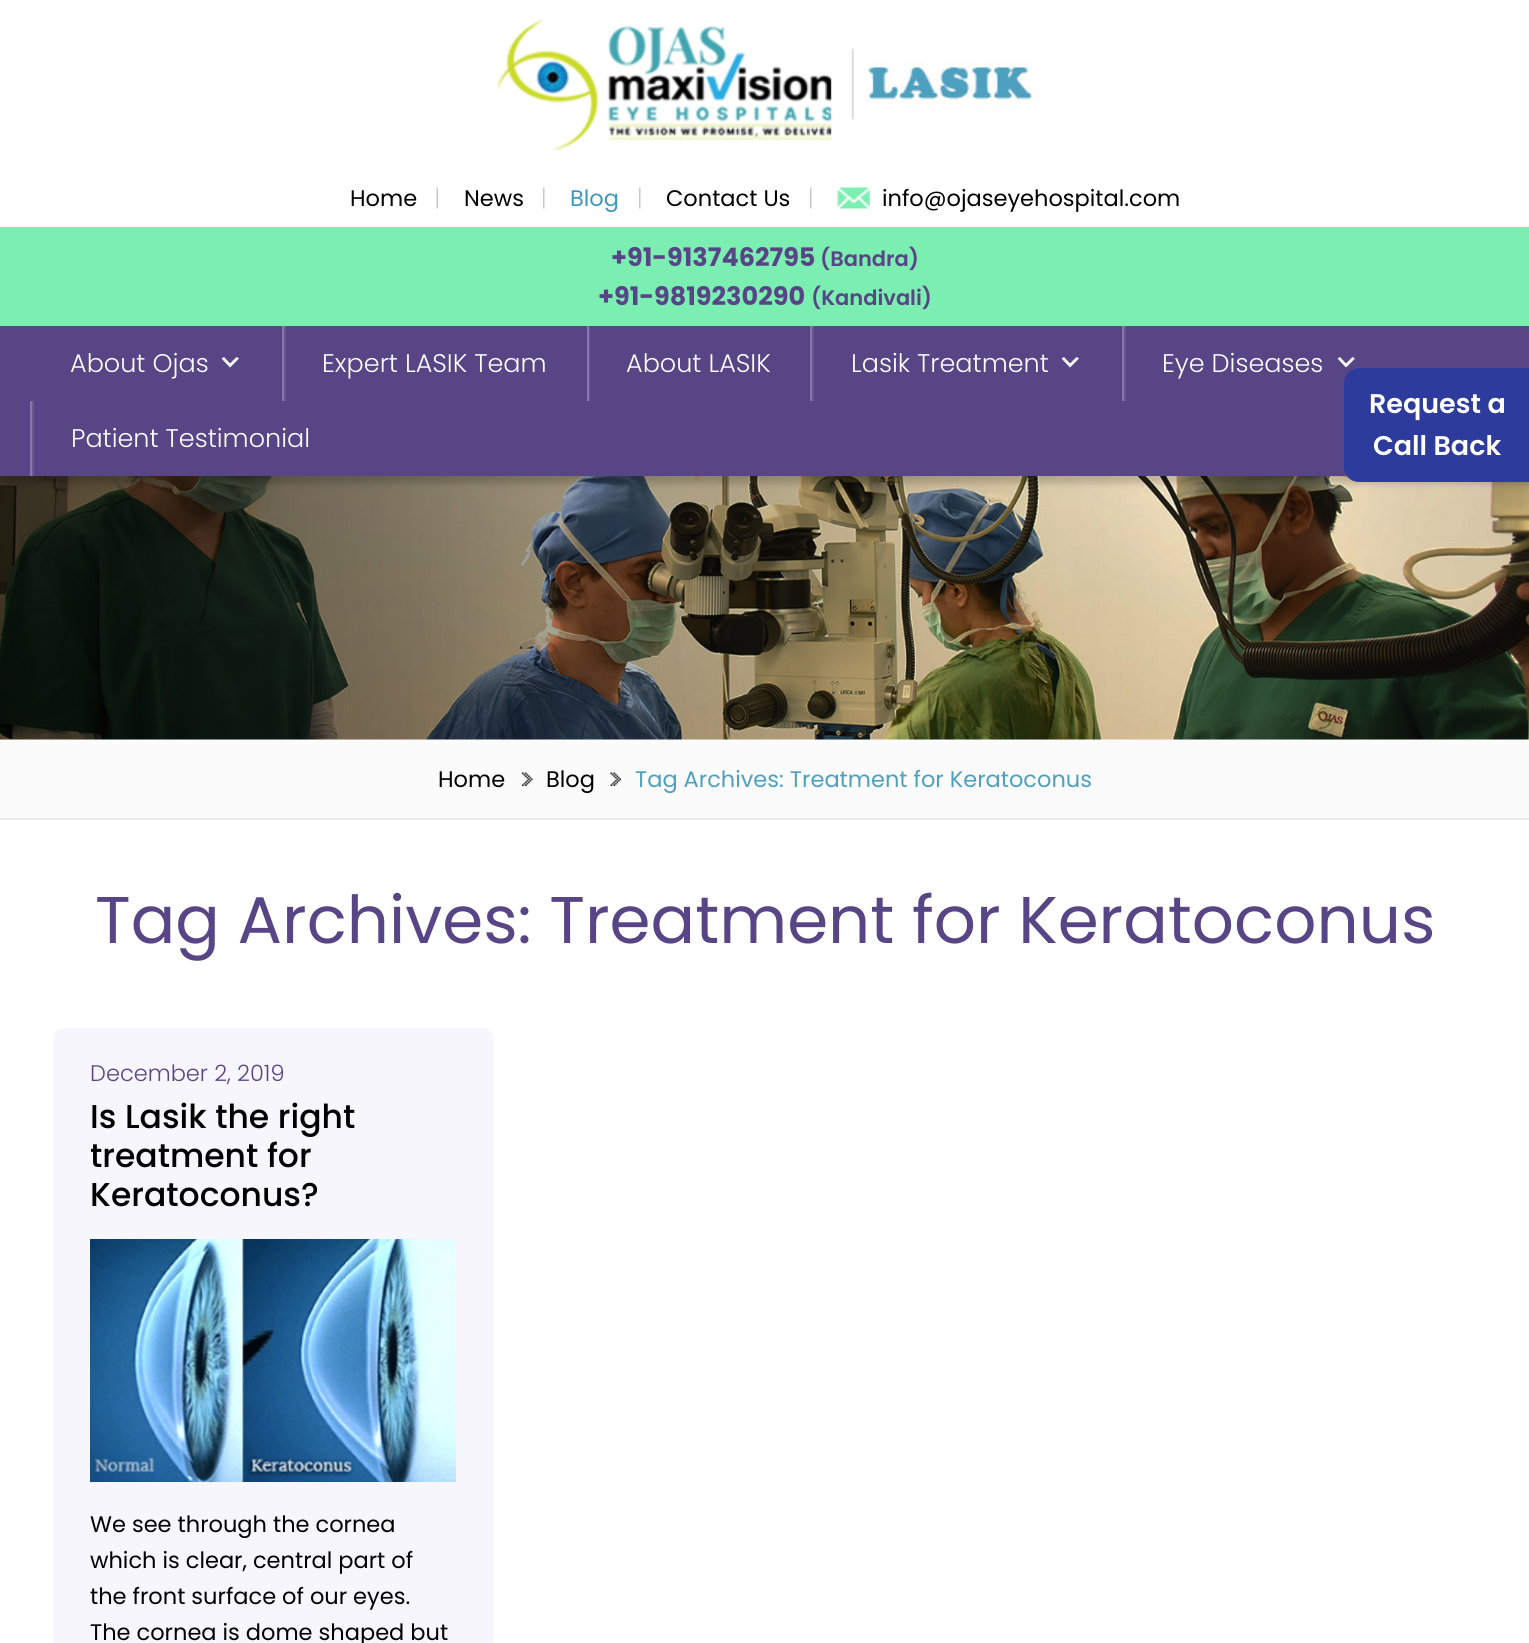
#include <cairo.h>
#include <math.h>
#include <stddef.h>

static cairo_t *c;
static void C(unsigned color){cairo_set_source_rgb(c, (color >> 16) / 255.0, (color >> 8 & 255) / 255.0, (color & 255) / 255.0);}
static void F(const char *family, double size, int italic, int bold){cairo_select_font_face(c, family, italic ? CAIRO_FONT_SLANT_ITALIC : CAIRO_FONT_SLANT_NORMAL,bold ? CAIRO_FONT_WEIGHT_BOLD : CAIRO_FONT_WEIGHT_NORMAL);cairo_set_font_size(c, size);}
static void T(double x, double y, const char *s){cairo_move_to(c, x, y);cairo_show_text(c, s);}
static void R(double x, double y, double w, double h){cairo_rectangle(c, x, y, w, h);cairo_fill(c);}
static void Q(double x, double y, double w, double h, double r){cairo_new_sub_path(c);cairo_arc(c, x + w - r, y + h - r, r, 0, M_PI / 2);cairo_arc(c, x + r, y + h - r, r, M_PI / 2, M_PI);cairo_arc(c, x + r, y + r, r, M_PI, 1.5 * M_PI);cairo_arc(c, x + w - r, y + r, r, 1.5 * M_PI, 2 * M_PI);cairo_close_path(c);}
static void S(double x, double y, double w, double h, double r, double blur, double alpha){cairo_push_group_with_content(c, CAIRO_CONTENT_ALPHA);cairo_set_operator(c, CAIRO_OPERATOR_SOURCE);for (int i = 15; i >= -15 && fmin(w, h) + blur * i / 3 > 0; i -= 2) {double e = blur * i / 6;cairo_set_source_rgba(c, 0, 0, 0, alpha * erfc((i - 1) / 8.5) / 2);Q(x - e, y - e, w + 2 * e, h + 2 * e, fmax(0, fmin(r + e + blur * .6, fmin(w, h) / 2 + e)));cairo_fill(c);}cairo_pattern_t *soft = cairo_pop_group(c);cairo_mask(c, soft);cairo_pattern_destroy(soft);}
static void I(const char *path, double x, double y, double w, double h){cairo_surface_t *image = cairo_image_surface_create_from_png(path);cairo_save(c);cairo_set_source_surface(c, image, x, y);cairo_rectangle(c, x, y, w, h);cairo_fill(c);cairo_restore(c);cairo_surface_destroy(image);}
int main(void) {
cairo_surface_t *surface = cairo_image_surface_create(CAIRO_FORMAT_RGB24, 1529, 1643);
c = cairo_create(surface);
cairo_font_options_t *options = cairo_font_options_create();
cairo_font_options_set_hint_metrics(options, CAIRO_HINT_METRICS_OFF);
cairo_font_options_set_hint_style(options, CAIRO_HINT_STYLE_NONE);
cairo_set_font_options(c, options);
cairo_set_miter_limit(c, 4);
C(0xffffff);
cairo_paint(c);
I("1.png",498,19,535,132);
I("2.png",436,187,2,22);
F("Poppins",22.5,0,0);
C(0x000000);
T(350,206,"Home");
I("3.png",543,187,2,22);
T(464,206,"News");
I("3.png",639,187,2,22);
C(0x4097bc);
T(570,206,"Blog");
I("3.png",810,187,2,22);
C(0x000000);
T(666,206,"Contact Us");
I("4.png",837,187,33,22);
T(882,206,"info@ojaseyehospital.com");
C(0xfbfbfb);
R(0,739,1529,79);
I("5.png",0,476,1529,264);
C(0x000000);
S(0,333,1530,150,0,4,.2);
C(0x7befb2);
R(0,227,1529,99);
F("Poppins",25.5,0,1);
C(0x584585);
T(611,266,"+91-9137462795");
F("Poppins SemiBold",21,0,0);
T(820,266,"(Bandra)");
F("Poppins",25.5,0,1);
T(598,305,"+91-9819230290");
F("Poppins SemiBold",21,0,0);
T(811,305,"(Kandivali)");
R(0,326,1529,150);
F("Poppins Light",25.5,0,0);
C(0xffffff);
T(70,372,"About Ojas");
cairo_new_path(c);
cairo_move_to(c,224,357);
cairo_line_to(c,230,363.5);
cairo_line_to(c,236.5,357);
cairo_line_to(c,239,358.5);
cairo_line_to(c,230,367.5);
cairo_line_to(c,221.5,358.5);
cairo_close_path(c);
cairo_fill(c);
C(0x695891);
R(284,326,2,75);
C(0x8676ad);
R(282,326,2,75);
C(0xffffff);
T(322,372,"Expert LASIK Team");
C(0x695891);
R(589,326,1,75);
C(0x8676ad);
R(587,326,2,75);
C(0xffffff);
T(626,372,"About LASIK");
C(0x695891);
R(812,326,2,75);
C(0x8676ad);
R(810,326,2,75);
C(0xffffff);
T(851,372,"Lasik Treatment");
cairo_new_path(c);
cairo_move_to(c,1064,357);
cairo_line_to(c,1070,363.5);
cairo_line_to(c,1076.5,357);
cairo_line_to(c,1079,358.5);
cairo_line_to(c,1070,367.5);
cairo_line_to(c,1061.5,358.5);
cairo_close_path(c);
cairo_fill(c);
C(0x695891);
R(1124,326,2,75);
C(0x8676ad);
R(1122,326,2,75);
C(0xffffff);
T(1162,372,"Eye Diseases");
cairo_new_path(c);
cairo_move_to(c,1340,357);
cairo_line_to(c,1346,363.5);
cairo_line_to(c,1352.5,357);
cairo_line_to(c,1355,358.5);
cairo_line_to(c,1346,367.5);
cairo_line_to(c,1337.5,358.5);
cairo_close_path(c);
cairo_fill(c);
C(0x695891);
R(32,401,2,75);
C(0x8676ad);
R(30,401,2,75);
C(0xffffff);
T(71,447,"Patient Testimonial");
C(0x2d3c9c);
cairo_new_path(c);
cairo_move_to(c,1359,368);
cairo_line_to(c,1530,368);
cairo_line_to(c,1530,482);
cairo_line_to(c,1359,482);
cairo_curve_to(c,1350.5,482,1344,475.5,1344,467);
cairo_line_to(c,1344,383);
cairo_curve_to(c,1344,374.5,1350.5,368,1359,368);
cairo_close_path(c);
cairo_fill(c);
F("Poppins SemiBold",27,0,0);
C(0xffffff);
T(1369,413,"Request a");
T(1373,455,"Call Back");
C(0xebebeb);
R(0,818,1529,2);
I("6.png",522,772,11,14);
F("Poppins",22.5,0,0);
C(0x000000);
T(438,787,"Home");
I("7.png",610,772,11,14);
T(546,787,"Blog");
C(0x4da0be);
T(635,787,"Tag Archives: Treatment for Keratoconus");
F("Poppins",66,0,0);
C(0x584585);
T(95,943,"Tag Archives: Treatment for Keratoconus");
C(0xf7f6fc);
Q(53,1028,441,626,11);
cairo_fill(c);
F("Poppins Light",22.5,0,0);
C(0x584585);
T(90,1081,"December 2, 2019");
F("Poppins Medium",33,0,0);
C(0x000000);
T(90,1128,"Is Lasik the right");
T(90,1167,"treatment for");
T(90,1206,"Keratoconus?");
I("8.png",90,1239,366,243);
F("Poppins",22.5,0,0);
T(90,1532,"We see through the cornea");
T(90,1568,"which is clear, central part of");
T(90,1604,"the front surface of our eyes.");
T(90,1640,"The cornea is dome shaped but");
cairo_surface_write_to_png(surface, "o.png");
cairo_font_options_destroy(options);
cairo_destroy(c);
cairo_surface_destroy(surface);
return 0;
}
